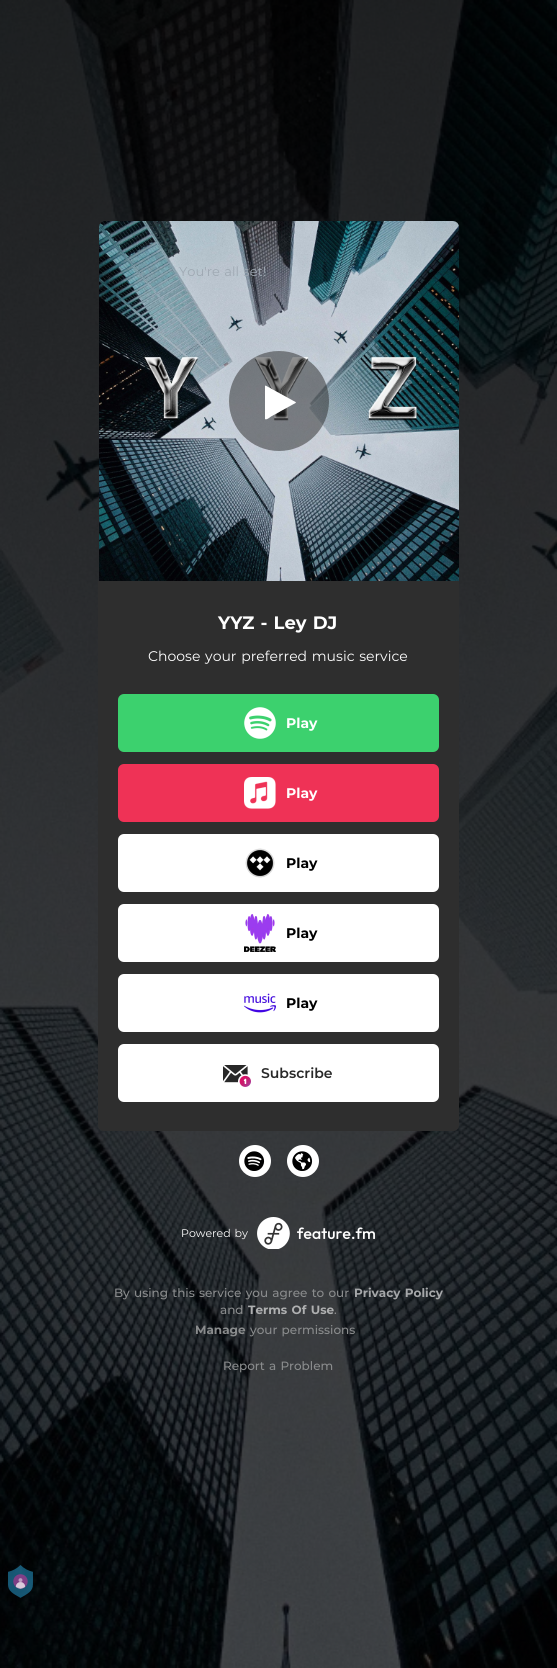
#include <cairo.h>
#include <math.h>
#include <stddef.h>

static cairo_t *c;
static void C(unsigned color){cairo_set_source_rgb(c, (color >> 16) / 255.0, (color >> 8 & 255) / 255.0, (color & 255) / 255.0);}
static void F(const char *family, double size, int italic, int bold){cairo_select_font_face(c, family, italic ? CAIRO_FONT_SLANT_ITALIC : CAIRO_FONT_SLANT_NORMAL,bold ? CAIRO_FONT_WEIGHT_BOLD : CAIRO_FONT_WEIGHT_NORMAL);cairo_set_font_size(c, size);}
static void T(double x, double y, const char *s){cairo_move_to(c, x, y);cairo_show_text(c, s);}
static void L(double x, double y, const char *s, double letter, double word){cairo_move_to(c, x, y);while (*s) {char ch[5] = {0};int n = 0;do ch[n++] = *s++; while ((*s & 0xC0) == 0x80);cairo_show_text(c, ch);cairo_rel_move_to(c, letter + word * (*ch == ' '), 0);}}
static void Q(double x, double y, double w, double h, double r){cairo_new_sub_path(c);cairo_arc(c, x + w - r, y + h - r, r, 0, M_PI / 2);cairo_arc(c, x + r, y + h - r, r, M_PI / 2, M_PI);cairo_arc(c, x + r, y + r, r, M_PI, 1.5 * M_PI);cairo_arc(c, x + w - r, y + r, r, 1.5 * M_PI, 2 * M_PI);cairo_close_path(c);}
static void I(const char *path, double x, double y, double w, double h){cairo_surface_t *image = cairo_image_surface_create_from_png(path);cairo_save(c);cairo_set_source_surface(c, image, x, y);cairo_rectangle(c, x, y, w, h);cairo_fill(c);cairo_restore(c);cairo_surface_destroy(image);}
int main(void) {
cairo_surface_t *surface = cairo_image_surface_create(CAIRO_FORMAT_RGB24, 557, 1668);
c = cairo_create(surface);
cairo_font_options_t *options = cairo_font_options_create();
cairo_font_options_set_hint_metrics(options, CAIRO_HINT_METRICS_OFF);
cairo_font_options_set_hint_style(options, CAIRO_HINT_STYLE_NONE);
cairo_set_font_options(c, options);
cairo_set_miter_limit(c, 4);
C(0xffffff);
cairo_paint(c);
I("1.png",0,0,557,1668);
I("2.png",99,221,360,360);
cairo_set_source_rgba(c,0.157,0.157,0.157,0.5);
cairo_arc(c,279,401,50,0,2 * M_PI);
cairo_fill(c);
C(0xffffff);
cairo_new_path(c);
cairo_move_to(c,295.5,403);
cairo_line_to(c,271,416.5);
cairo_curve_to(c,270.5,417,266,420.5,265,419);
cairo_line_to(c,265,386);
cairo_line_to(c,265.5,385.5);
cairo_line_to(c,295.5,402);
cairo_line_to(c,296,402.5);
cairo_line_to(c,295.5,403);
cairo_fill(c);
F("Montserrat",13,0,0);
C(0x9ea8b2);
L(179,276,"You're all set!",0,1);
C(0x2e2e2e);
cairo_new_path(c);
cairo_move_to(c,98,581);
cairo_line_to(c,459,581);
cairo_line_to(c,459,1125);
cairo_curve_to(c,459,1128.5,456.5,1131,453,1131);
cairo_line_to(c,104,1131);
cairo_curve_to(c,100.5,1131,98,1128.5,98,1125);
cairo_close_path(c);
cairo_fill(c);
F("Montserrat",18,0,1);
C(0xffffff);
L(218,629,"YYZ - Ley DJ",0,1);
F("Montserrat",14,0,0);
L(148,661,"Choose your preferred music service",0,1);
C(0x3cd16e);
Q(118,694,321,58,6);
cairo_fill(c);
I("3.png",244,707,32,32);
F("Montserrat",14,0,1);
C(0xffffff);
T(286,728,"Play");
C(0xef3256);
Q(118,764,321,58,6);
cairo_fill(c);
I("4.png",244,777,32,32);
C(0xffffff);
T(286,798,"Play");
Q(118,834,321,58,6);
cairo_fill(c);
I("5.png",245,848,30,30);
C(0x000000);
T(286,868,"Play");
C(0xffffff);
Q(118,904,321,58,6);
cairo_fill(c);
I("6.png",244,914,32,38);
C(0x000000);
T(286,938,"Play");
C(0xffffff);
Q(118,974,321,58,6);
cairo_fill(c);
I("7.png",244,993,32,20);
C(0x000000);
T(286,1008,"Play");
C(0xffffff);
Q(118,1044,321,58,6);
cairo_fill(c);
I("8.png",223,1065,28,22);
F("Montserrat SemiBold",14,0,0);
C(0x282828);
T(261,1078,"Subscribe");
C(0xffffff);
cairo_new_path(c);
cairo_arc(c,255,1161,16,0,2 * M_PI);
cairo_fill(c);
I("9.png",244,1151,21,20);
cairo_arc(c,303,1161,16,0,2 * M_PI);
cairo_fill(c);
I("10.png",292,1151,21,20);
F("Montserrat",11,0,0);
L(181,1237,"Powered by",0,1);
I("11.png",257,1217,118,32);
F("Montserrat Medium",12,0,0);
C(0x8a8c8d);
L(114,1297,"By using this service you agree to our",0,1);
F("Montserrat",12,0,1);
C(0xa5a7a9);
L(354,1297,"Privacy Policy",0,1);
F("Montserrat Medium",12,0,0);
C(0x8a8c8d);
T(220,1314,"and");
F("Montserrat",12,0,1);
C(0xafb0b1);
L(248,1314,"Terms Of Use",0,1);
F("Montserrat Medium",12,0,0);
C(0x929293);
T(334,1314,".");
F("Montserrat",12,0,1);
C(0x8a8c8d);
T(195,1334,"Manage");
F("Montserrat Medium",12,0,0);
L(250,1334,"your permissions",0,1);
L(223,1370,"Report a Problem",0,1);
I("12.png",8,1565,25,33);
cairo_surface_write_to_png(surface, "o.png");
cairo_font_options_destroy(options);
cairo_destroy(c);
cairo_surface_destroy(surface);
return 0;
}
